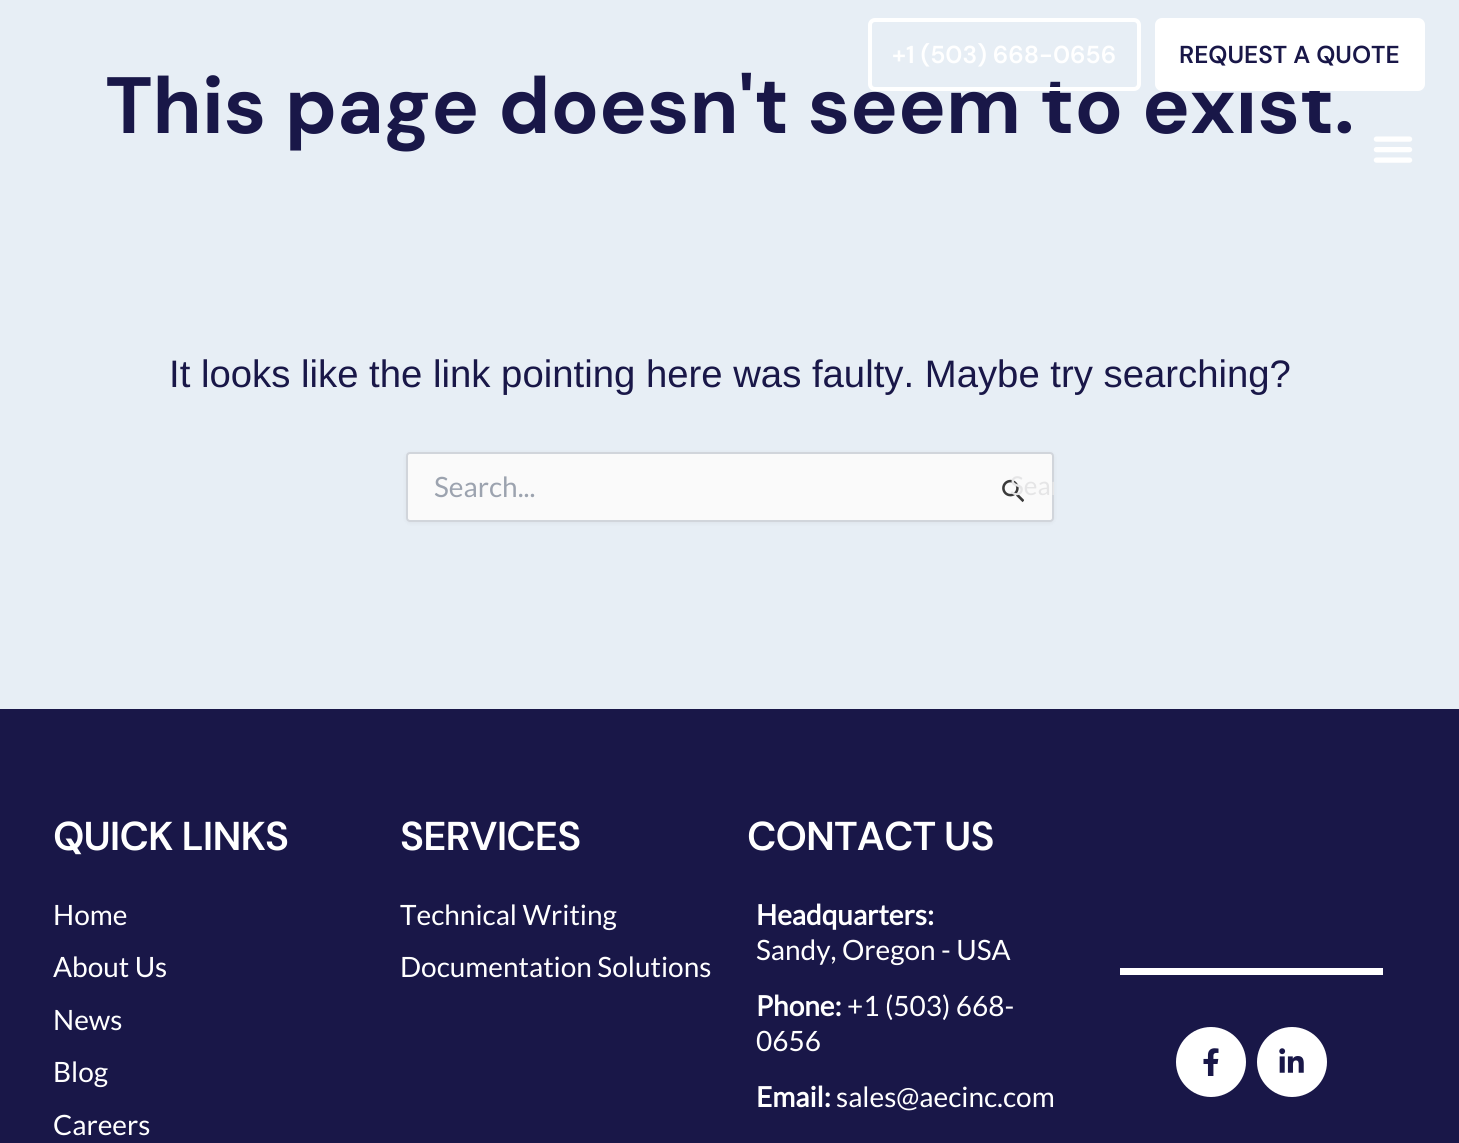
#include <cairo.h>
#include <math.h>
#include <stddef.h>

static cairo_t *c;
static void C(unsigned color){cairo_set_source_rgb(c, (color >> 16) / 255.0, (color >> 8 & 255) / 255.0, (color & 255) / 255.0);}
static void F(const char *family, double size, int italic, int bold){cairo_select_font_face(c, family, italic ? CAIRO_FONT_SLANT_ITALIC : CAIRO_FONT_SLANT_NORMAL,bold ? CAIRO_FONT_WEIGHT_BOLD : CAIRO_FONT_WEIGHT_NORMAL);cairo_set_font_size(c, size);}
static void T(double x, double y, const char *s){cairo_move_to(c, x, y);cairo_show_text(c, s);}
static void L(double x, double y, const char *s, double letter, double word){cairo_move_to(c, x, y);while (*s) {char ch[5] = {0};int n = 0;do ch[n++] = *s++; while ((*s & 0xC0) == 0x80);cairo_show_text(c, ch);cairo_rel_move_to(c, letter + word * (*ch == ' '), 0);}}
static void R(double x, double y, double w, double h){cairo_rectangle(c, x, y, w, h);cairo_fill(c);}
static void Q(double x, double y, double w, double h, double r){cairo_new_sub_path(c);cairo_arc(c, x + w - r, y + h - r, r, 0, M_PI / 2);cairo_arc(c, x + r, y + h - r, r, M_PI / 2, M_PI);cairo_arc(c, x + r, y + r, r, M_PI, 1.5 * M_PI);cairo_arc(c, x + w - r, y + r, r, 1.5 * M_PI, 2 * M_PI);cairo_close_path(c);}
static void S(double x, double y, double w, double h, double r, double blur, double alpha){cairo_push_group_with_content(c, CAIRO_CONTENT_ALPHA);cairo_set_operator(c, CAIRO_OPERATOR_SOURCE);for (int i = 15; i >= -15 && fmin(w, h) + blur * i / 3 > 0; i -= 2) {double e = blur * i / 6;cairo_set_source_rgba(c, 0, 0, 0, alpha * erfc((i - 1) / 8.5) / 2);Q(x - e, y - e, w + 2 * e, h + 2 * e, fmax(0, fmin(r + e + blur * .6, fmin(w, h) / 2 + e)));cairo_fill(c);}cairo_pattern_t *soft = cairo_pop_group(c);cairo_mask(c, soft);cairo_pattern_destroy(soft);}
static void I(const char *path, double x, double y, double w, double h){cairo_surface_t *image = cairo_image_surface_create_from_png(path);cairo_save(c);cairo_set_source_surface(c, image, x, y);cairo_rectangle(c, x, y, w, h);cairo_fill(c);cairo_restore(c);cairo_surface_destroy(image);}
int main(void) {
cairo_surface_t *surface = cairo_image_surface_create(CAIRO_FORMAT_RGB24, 1459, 1143);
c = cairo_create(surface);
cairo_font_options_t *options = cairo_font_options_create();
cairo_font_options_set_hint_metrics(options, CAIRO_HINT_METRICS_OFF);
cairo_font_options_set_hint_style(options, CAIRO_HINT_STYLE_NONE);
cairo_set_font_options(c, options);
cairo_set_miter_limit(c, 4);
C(0xe7eef5);
cairo_paint(c);
F("DM Sans",79.75,0,1);
C(0x191748);
T(105,133,"This page doesn't seem to exist.");
Q(870,20,269,69,5);
C(0xffffff);
cairo_set_line_width(c,4);
cairo_stroke(c);
F("DM Sans SemiBold",24.5,0,0);
T(892,63,"+1 (503) 668-0656");
Q(1157,20,266,69,5);
cairo_fill_preserve(c);
cairo_stroke(c);
C(0x191748);
T(1179,63,"REQUEST A QUOTE");
I("1.png",1373,136,40,27);
F("Liberation Sans",38.3,0,0);
T(169,387,"It looks like the link pointing here was faulty. Maybe try searching?");
C(0x000000);
S(406,453,648,70,4,2,.05);
C(0xfafafa);
Q(407,453,646,68,3);
cairo_fill_preserve(c);
C(0xd1d5db);
cairo_set_line_width(c,2);
cairo_stroke(c);
F("Lato",28,0,0);
C(0x9ca3af);
T(434,497,"Search...");
I("2.png",1002,479,22,24);
cairo_save(c);
Q(975,452,79,70,4);
cairo_clip(c);
F("Lato",26,0,0);
C(0xe5e5e6);
T(1010,495,"Sear");
cairo_restore(c);
C(0x191748);
R(0,709,1459,434);
F("DM Sans SemiBold",40.25,0,0);
C(0xffffff);
L(53,850,"QUICK LINKS",-.9,0);
F("Lato",28,0,0);
T(53,925,"Home");
T(53,977,"About Us");
T(53,1030,"News");
T(53,1082,"Blog");
T(53,1135,"Careers");
F("DM Sans SemiBold",40.25,0,0);
L(400,850,"SERVICES",-.9,0);
F("Lato",28,0,0);
T(400,925,"Technical Writing");
T(400,977,"Documentation Solutions");
F("DM Sans SemiBold",40.25,0,0);
L(747,850,"CONTACT US",-.9,0);
F("Lato",28,0,1);
T(756,925,"Headquarters:");
F("Lato",28,0,0);
T(756,960,"Sandy, Oregon - USA");
F("Lato",28,0,1);
T(756,1016,"Phone:");
F("Lato",28,0,0);
T(847,1016,"+1 (503) 668-");
T(756,1051,"0656");
F("Lato",28,0,1);
T(756,1107,"Email:");
F("Lato",28,0,0);
T(836,1107,"sales@aecinc.com");
R(1120,968,263,7);
cairo_new_path(c);
cairo_arc(c,1211,1062,35,0,2 * M_PI);
cairo_fill(c);
I("3.png",1203,1048,16,28);
cairo_arc(c,1292,1062,35,0,2 * M_PI);
cairo_fill(c);
I("4.png",1279,1048,25,25);
cairo_surface_write_to_png(surface, "o.png");
cairo_font_options_destroy(options);
cairo_destroy(c);
cairo_surface_destroy(surface);
return 0;
}
